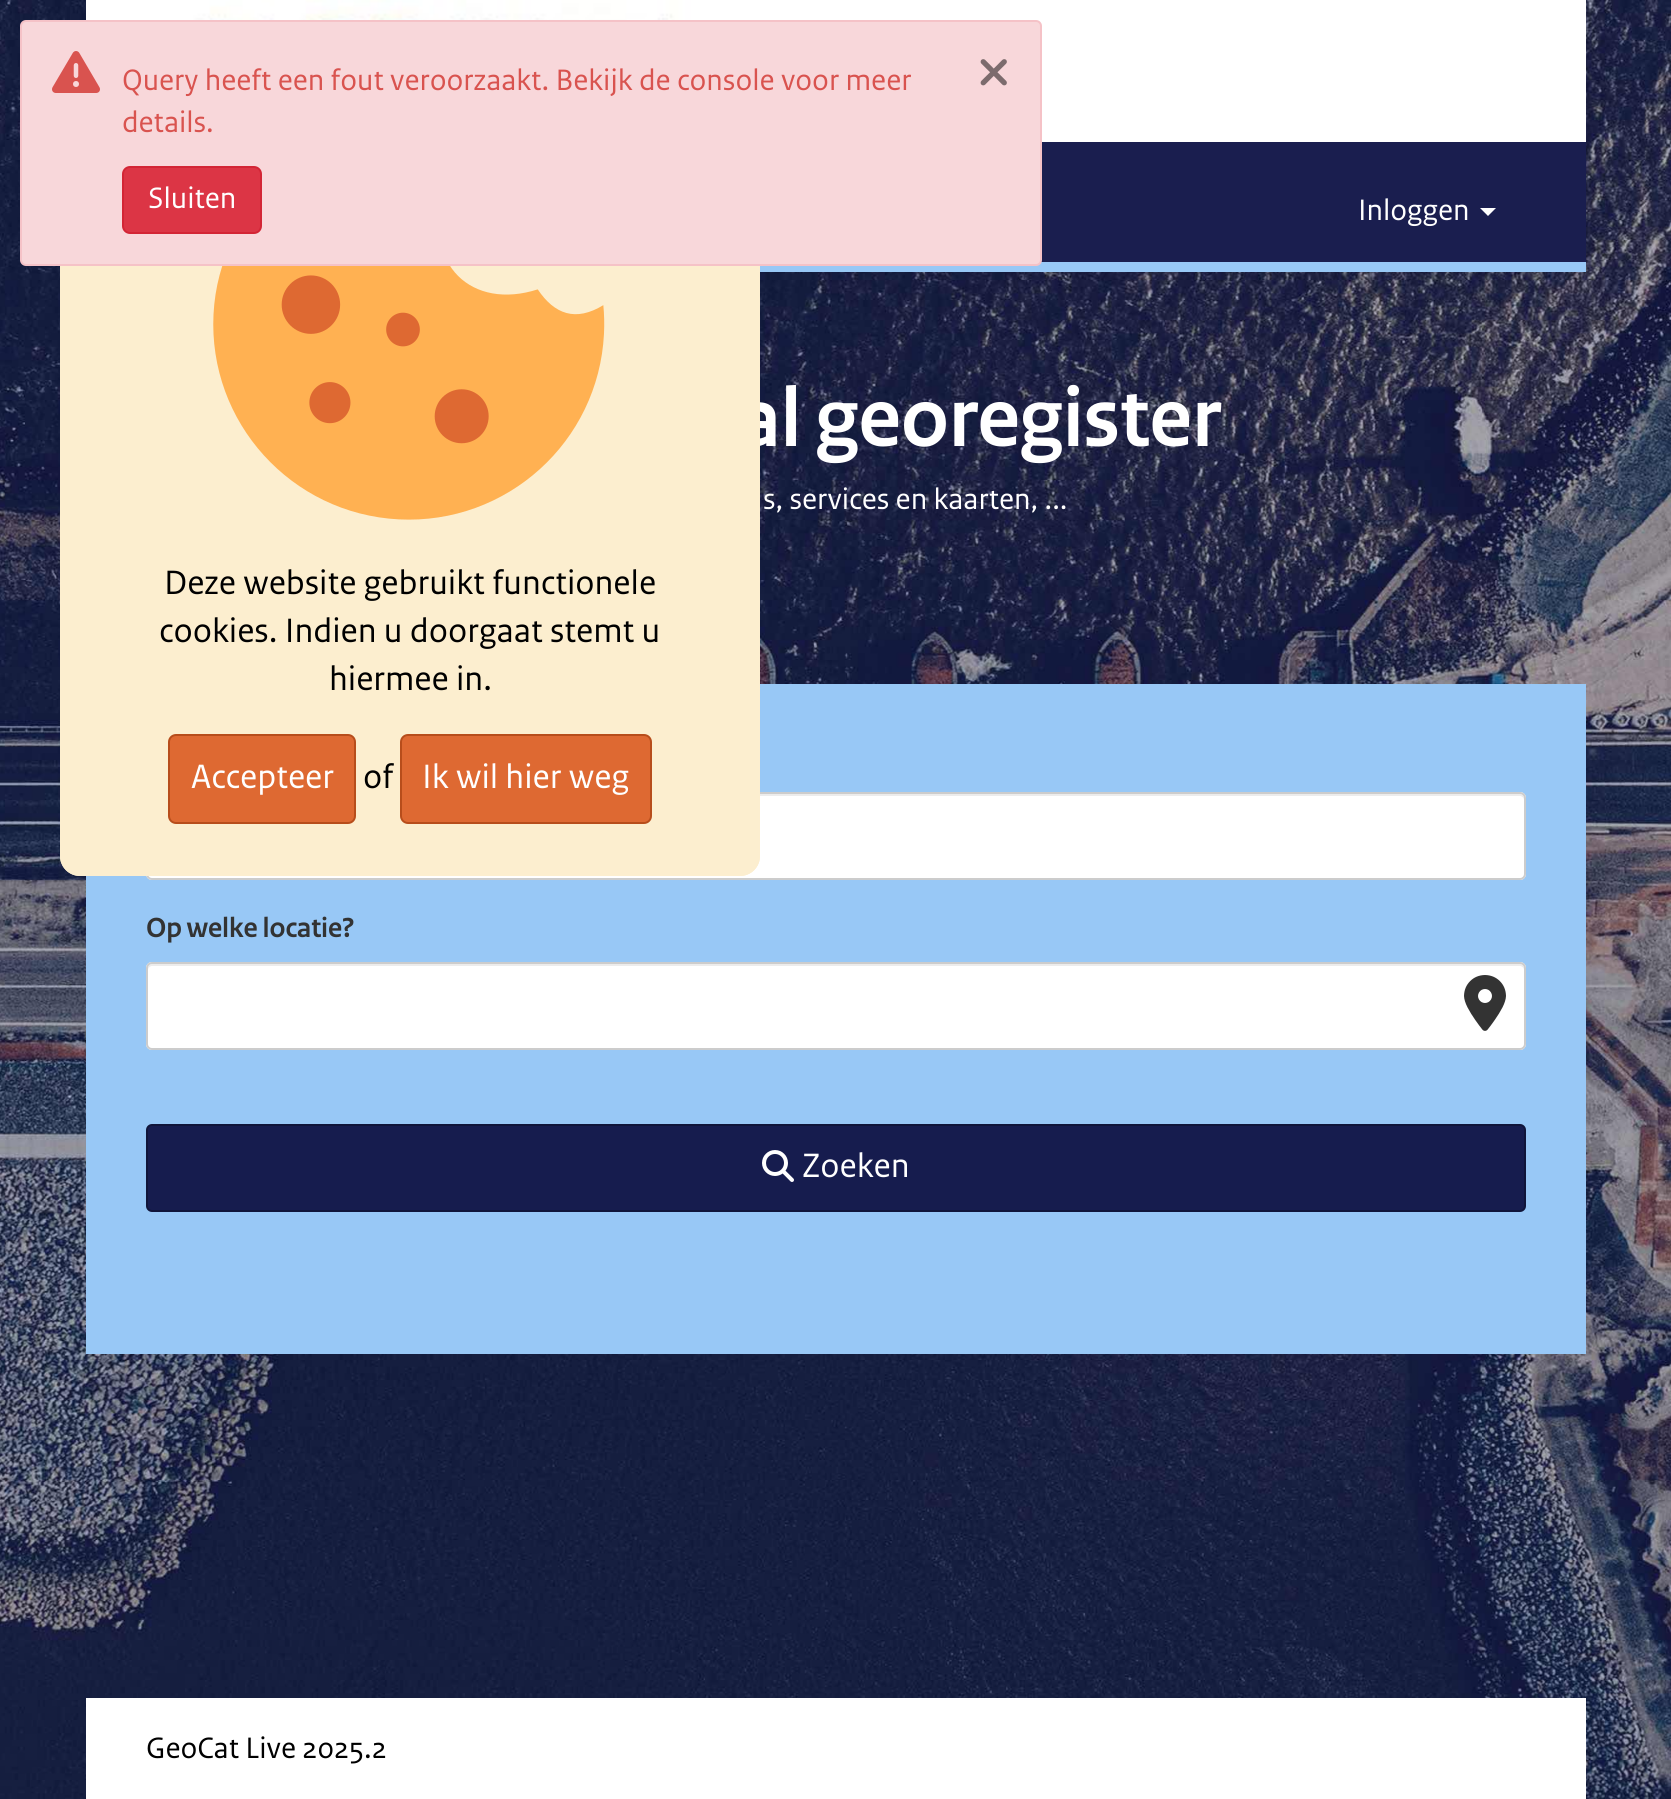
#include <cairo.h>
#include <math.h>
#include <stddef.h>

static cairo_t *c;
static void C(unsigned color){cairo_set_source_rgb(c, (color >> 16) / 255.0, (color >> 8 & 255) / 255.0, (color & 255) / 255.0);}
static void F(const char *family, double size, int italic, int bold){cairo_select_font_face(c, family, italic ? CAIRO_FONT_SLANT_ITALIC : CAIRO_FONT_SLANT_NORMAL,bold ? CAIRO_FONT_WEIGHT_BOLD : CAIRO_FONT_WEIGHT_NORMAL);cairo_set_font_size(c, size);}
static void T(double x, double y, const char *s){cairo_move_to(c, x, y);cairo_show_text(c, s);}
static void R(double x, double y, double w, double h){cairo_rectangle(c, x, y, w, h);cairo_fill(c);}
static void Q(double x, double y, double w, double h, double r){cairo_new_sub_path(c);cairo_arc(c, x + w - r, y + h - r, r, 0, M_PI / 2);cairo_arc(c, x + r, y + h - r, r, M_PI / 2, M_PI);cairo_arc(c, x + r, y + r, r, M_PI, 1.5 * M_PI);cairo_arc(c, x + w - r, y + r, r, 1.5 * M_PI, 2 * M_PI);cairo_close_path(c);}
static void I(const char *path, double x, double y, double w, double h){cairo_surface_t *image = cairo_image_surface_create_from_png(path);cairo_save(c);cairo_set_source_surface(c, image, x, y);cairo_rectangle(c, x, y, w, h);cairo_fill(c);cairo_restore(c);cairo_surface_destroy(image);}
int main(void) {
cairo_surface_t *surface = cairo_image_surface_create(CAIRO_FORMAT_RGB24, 1671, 1799);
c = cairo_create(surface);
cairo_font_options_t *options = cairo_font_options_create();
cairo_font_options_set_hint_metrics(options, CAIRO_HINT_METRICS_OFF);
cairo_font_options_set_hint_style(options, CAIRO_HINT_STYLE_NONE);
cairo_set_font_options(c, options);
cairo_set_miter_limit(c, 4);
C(0xffffff);
cairo_paint(c);
I("1.png",0,0,1671,1799);
C(0xffffff);
R(86,0,1500,142);
C(0x1a1e4f);
R(1041,142,545,120);
C(0x98c8f6);
R(760,262,826,10);
F("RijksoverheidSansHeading",84,0,1);
C(0xffffff);
T(738,446,"al georegister");
C(0x98c8f6);
R(86,684,1500,670);
C(0xffffff);
Q(146,792,1380,88,6);
cairo_fill(c);
C(0xececec);
cairo_new_path(c);
cairo_move_to(c,152,796);
cairo_line_to(c,1520,796);
cairo_curve_to(c,1522,796,1524,798,1524,800);
cairo_curve_to(c,1524,797,1524,794,1520,794);
cairo_line_to(c,152,794);
cairo_curve_to(c,148,794,148,797,148,800);
cairo_curve_to(c,148,798,150,796,152,796);
cairo_close_path(c);
cairo_fill(c);
Q(147,793,1378,86,5);
C(0xcccccc);
cairo_stroke(c);
C(0xfceecf);
Q(60,58,700,818,20);
cairo_fill(c);
I("7.png",213,266,392,254);
Q(61,59,698,816,19);
cairo_stroke(c);
C(0xf8d7da);
Q(21,21,1020,244,5);
cairo_fill_preserve(c);
C(0xf5c2c7);
cairo_stroke(c);
I("2.png",52,51,48,42);
F("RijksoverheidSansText",28,0,0);
C(0xd9534f);
T(122,90,"Query heeft een fout veroorzaakt. Bekijk de console voor meer");
T(122,132,"details.");
I("3.png",980,59,27,27);
C(0xdc3545);
Q(123,167,138,66,7);
cairo_fill_preserve(c);
C(0xd32535);
cairo_stroke(c);
C(0xffffff);
T(148,208,"Sluiten");
I("4.png",179,0,535,20);
T(1358,220,"Inloggen");
cairo_new_path(c);
cairo_move_to(c,1480,208);
cairo_line_to(c,1496,208);
cairo_line_to(c,1488,216);
cairo_close_path(c);
cairo_fill(c);
T(763,509,"s, services en kaarten, ...");
F("RijksoverheidSansHeading",28,0,1);
C(0x333333);
T(146,937,"Op welke locatie?");
C(0xffffff);
Q(146,962,1380,88,6);
cairo_fill(c);
C(0xececec);
cairo_new_path(c);
cairo_move_to(c,152,966);
cairo_line_to(c,1520,966);
cairo_curve_to(c,1522,966,1524,968,1524,970);
cairo_curve_to(c,1524,967,1524,964,1520,964);
cairo_line_to(c,152,964);
cairo_curve_to(c,148,964,148,967,148,970);
cairo_curve_to(c,148,968,150,966,152,966);
cairo_close_path(c);
cairo_fill(c);
Q(147,963,1378,86,5);
C(0xcccccc);
cairo_stroke(c);
I("5.png",1464,975,42,56);
C(0x161c4e);
Q(147,1125,1378,86,5);
cairo_fill_preserve(c);
C(0x10153a);
cairo_stroke(c);
I("6.png",762,1150,32,32);
F("RijksoverheidSansText",32,0,0);
C(0xffffff);
T(802,1177,"Zoeken");
C(0x000000);
T(164,594,"Deze website gebruikt functionele");
T(159,642,"cookies. Indien u doorgaat stemt u");
T(329,690,"hiermee in.");
C(0xde6932);
Q(169,735,186,88,7);
cairo_fill_preserve(c);
C(0xb74d1b);
cairo_stroke(c);
C(0xffffff);
T(191,788,"Accepteer");
C(0x000000);
T(363,788,"of");
C(0xde6932);
Q(401,735,250,88,7);
cairo_fill_preserve(c);
C(0xb74d1b);
cairo_stroke(c);
C(0xffffff);
T(422,788,"Ik wil hier weg");
R(86,1698,1500,101);
F("RijksoverheidSansText",28,0,0);
C(0x000000);
T(146,1758,"GeoCat Live 2025.2");
cairo_surface_write_to_png(surface, "o.png");
cairo_font_options_destroy(options);
cairo_destroy(c);
cairo_surface_destroy(surface);
return 0;
}
